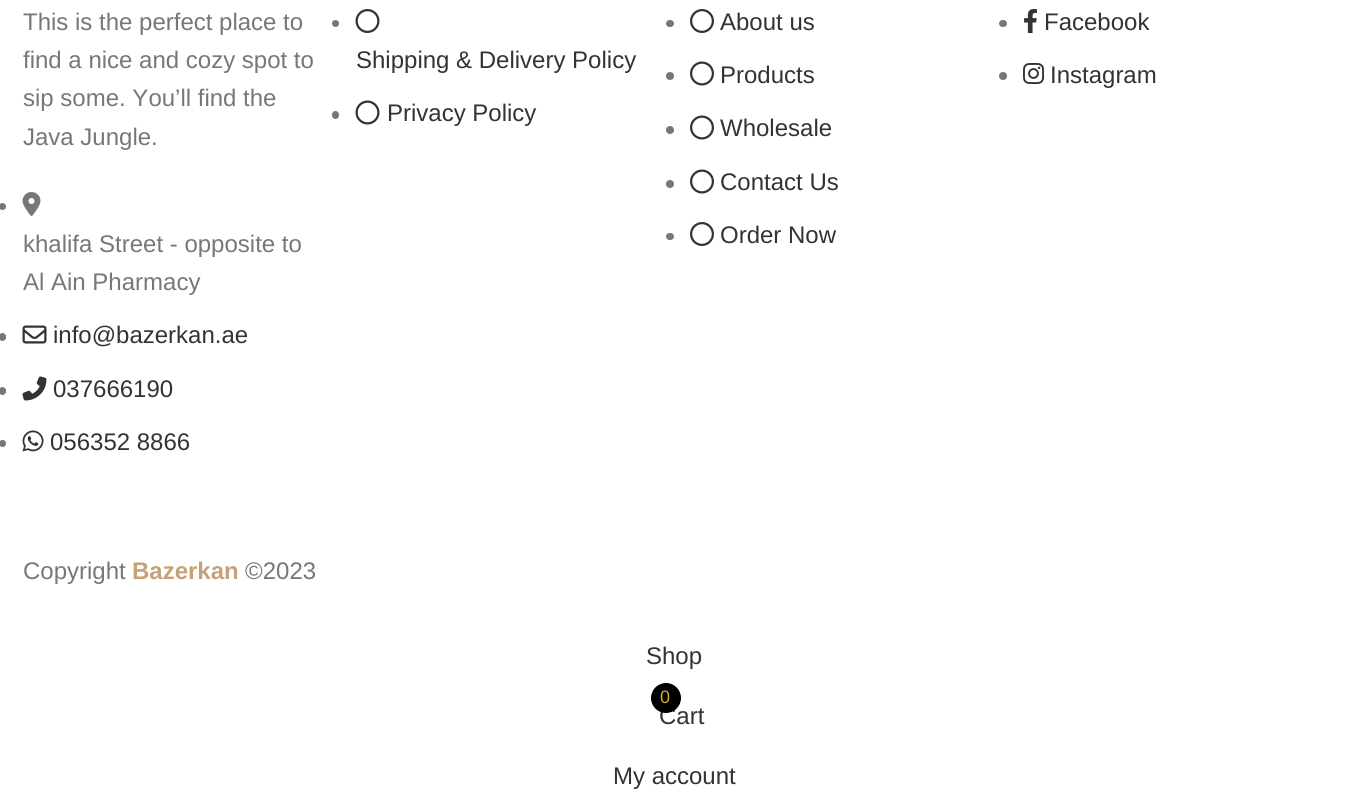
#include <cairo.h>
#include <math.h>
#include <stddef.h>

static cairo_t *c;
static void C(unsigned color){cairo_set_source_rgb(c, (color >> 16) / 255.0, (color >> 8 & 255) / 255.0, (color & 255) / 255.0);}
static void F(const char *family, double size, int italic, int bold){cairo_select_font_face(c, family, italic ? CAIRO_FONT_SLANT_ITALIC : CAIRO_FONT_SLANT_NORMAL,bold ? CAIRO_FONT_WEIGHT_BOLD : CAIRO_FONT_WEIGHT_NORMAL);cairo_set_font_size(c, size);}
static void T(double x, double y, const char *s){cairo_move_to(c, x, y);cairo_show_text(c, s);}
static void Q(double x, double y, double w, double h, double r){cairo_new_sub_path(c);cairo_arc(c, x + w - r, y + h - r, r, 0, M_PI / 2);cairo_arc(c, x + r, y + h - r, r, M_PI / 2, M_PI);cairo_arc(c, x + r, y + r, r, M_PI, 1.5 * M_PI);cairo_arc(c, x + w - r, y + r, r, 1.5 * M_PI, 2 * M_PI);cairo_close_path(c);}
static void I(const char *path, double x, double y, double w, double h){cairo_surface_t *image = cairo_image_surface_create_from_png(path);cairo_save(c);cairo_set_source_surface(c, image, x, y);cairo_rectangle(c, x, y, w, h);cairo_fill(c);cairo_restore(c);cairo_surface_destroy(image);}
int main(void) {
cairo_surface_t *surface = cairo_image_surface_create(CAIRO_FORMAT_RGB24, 1348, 806);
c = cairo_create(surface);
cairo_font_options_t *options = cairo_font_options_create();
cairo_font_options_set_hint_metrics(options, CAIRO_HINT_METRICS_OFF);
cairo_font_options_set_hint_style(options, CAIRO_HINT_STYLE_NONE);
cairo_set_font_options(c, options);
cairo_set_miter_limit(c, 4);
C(0xffffff);
cairo_paint(c);
F("Liberation Sans",24,0,0);
C(0x777777);
T(23,30,"This is the perfect place to");
T(23,68,"find a nice and cozy spot to");
T(23,106,"sip some. You’ll find the");
T(23,145,"Java Jungle.");
cairo_new_path(c);
cairo_arc(c,2.5,206.5,3.5,0,2 * M_PI);
cairo_fill(c);
I("1.png",22,192,19,24);
T(23,252,"khalifa Street - opposite to");
T(23,290,"Al Ain Pharmacy");
Q(-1,333,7,8,3.5);
cairo_fill(c);
I("2.png",22,325,25,19);
C(0x333333);
T(53,343,"info@bazerkan.ae");
C(0x777777);
Q(-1,387,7,8,3.5);
cairo_fill(c);
I("3.png",22,376,25,25);
C(0x333333);
T(53,397,"037666190");
C(0x777777);
cairo_new_path(c);
cairo_arc(c,2.5,443.5,3.5,0,2 * M_PI);
cairo_fill(c);
I("4.png",22,430,22,22);
C(0x333333);
T(50,450,"056352 8866");
C(0x777777);
cairo_new_path(c);
cairo_arc(c,335.5,23.5,3.5,0,2 * M_PI);
cairo_fill(c);
I("5.png",355,9,25,24);
C(0x333333);
T(356,68,"Shipping & Delivery Policy");
C(0x777777);
Q(332,111,7,8,3.5);
cairo_fill(c);
I("6.png",355,100,25,25);
C(0x333333);
T(387,121,"Privacy Policy");
C(0x777777);
Q(666,20,8,7,3.5);
cairo_fill(c);
I("7.png",690,9,24,24);
C(0x333333);
T(720,30,"About us");
C(0x777777);
cairo_new_path(c);
cairo_arc(c,670,76,4,0,2 * M_PI);
cairo_fill(c);
I("8.png",690,61,24,25);
C(0x333333);
T(720,83,"Products");
C(0x777777);
cairo_new_path(c);
cairo_arc(c,670,130,4,0,2 * M_PI);
cairo_fill(c);
I("8.png",690,115,24,25);
C(0x333333);
T(720,136,"Wholesale");
C(0x777777);
cairo_new_path(c);
cairo_arc(c,670,184,4,0,2 * M_PI);
cairo_fill(c);
I("8.png",690,169,24,25);
C(0x333333);
T(720,190,"Contact Us");
C(0x777777);
Q(666,233,8,7,3.5);
cairo_fill(c);
I("7.png",690,222,24,24);
C(0x333333);
T(720,243,"Order Now");
C(0x777777);
Q(999,20,8,7,3.5);
cairo_fill(c);
I("9.png",1024,9,13,24);
C(0x333333);
T(1044,30,"Facebook");
C(0x777777);
cairo_new_path(c);
cairo_arc(c,1003,76,4,0,2 * M_PI);
cairo_fill(c);
I("10.png",1023,63,21,21);
C(0x333333);
T(1050,83,"Instagram");
C(0x777777);
T(23,579,"Copyright");
F("Liberation Sans",24,0,1);
C(0xc7a17a);
T(132,579,"Bazerkan");
F("Liberation Sans",24,0,0);
C(0x777777);
T(245,579,"©2023");
C(0x333333);
T(646,664,"Shop");
T(659,724,"Cart");
C(0x000000);
cairo_new_path(c);
cairo_arc(c,666,698,15,0,2 * M_PI);
cairo_fill(c);
F("Liberation Sans",18,0,0);
C(0xd7a938);
T(660,703,"0");
F("Liberation Sans",24,0,0);
C(0x333333);
T(613,784,"My account");
cairo_surface_write_to_png(surface, "o.png");
cairo_font_options_destroy(options);
cairo_destroy(c);
cairo_surface_destroy(surface);
return 0;
}
